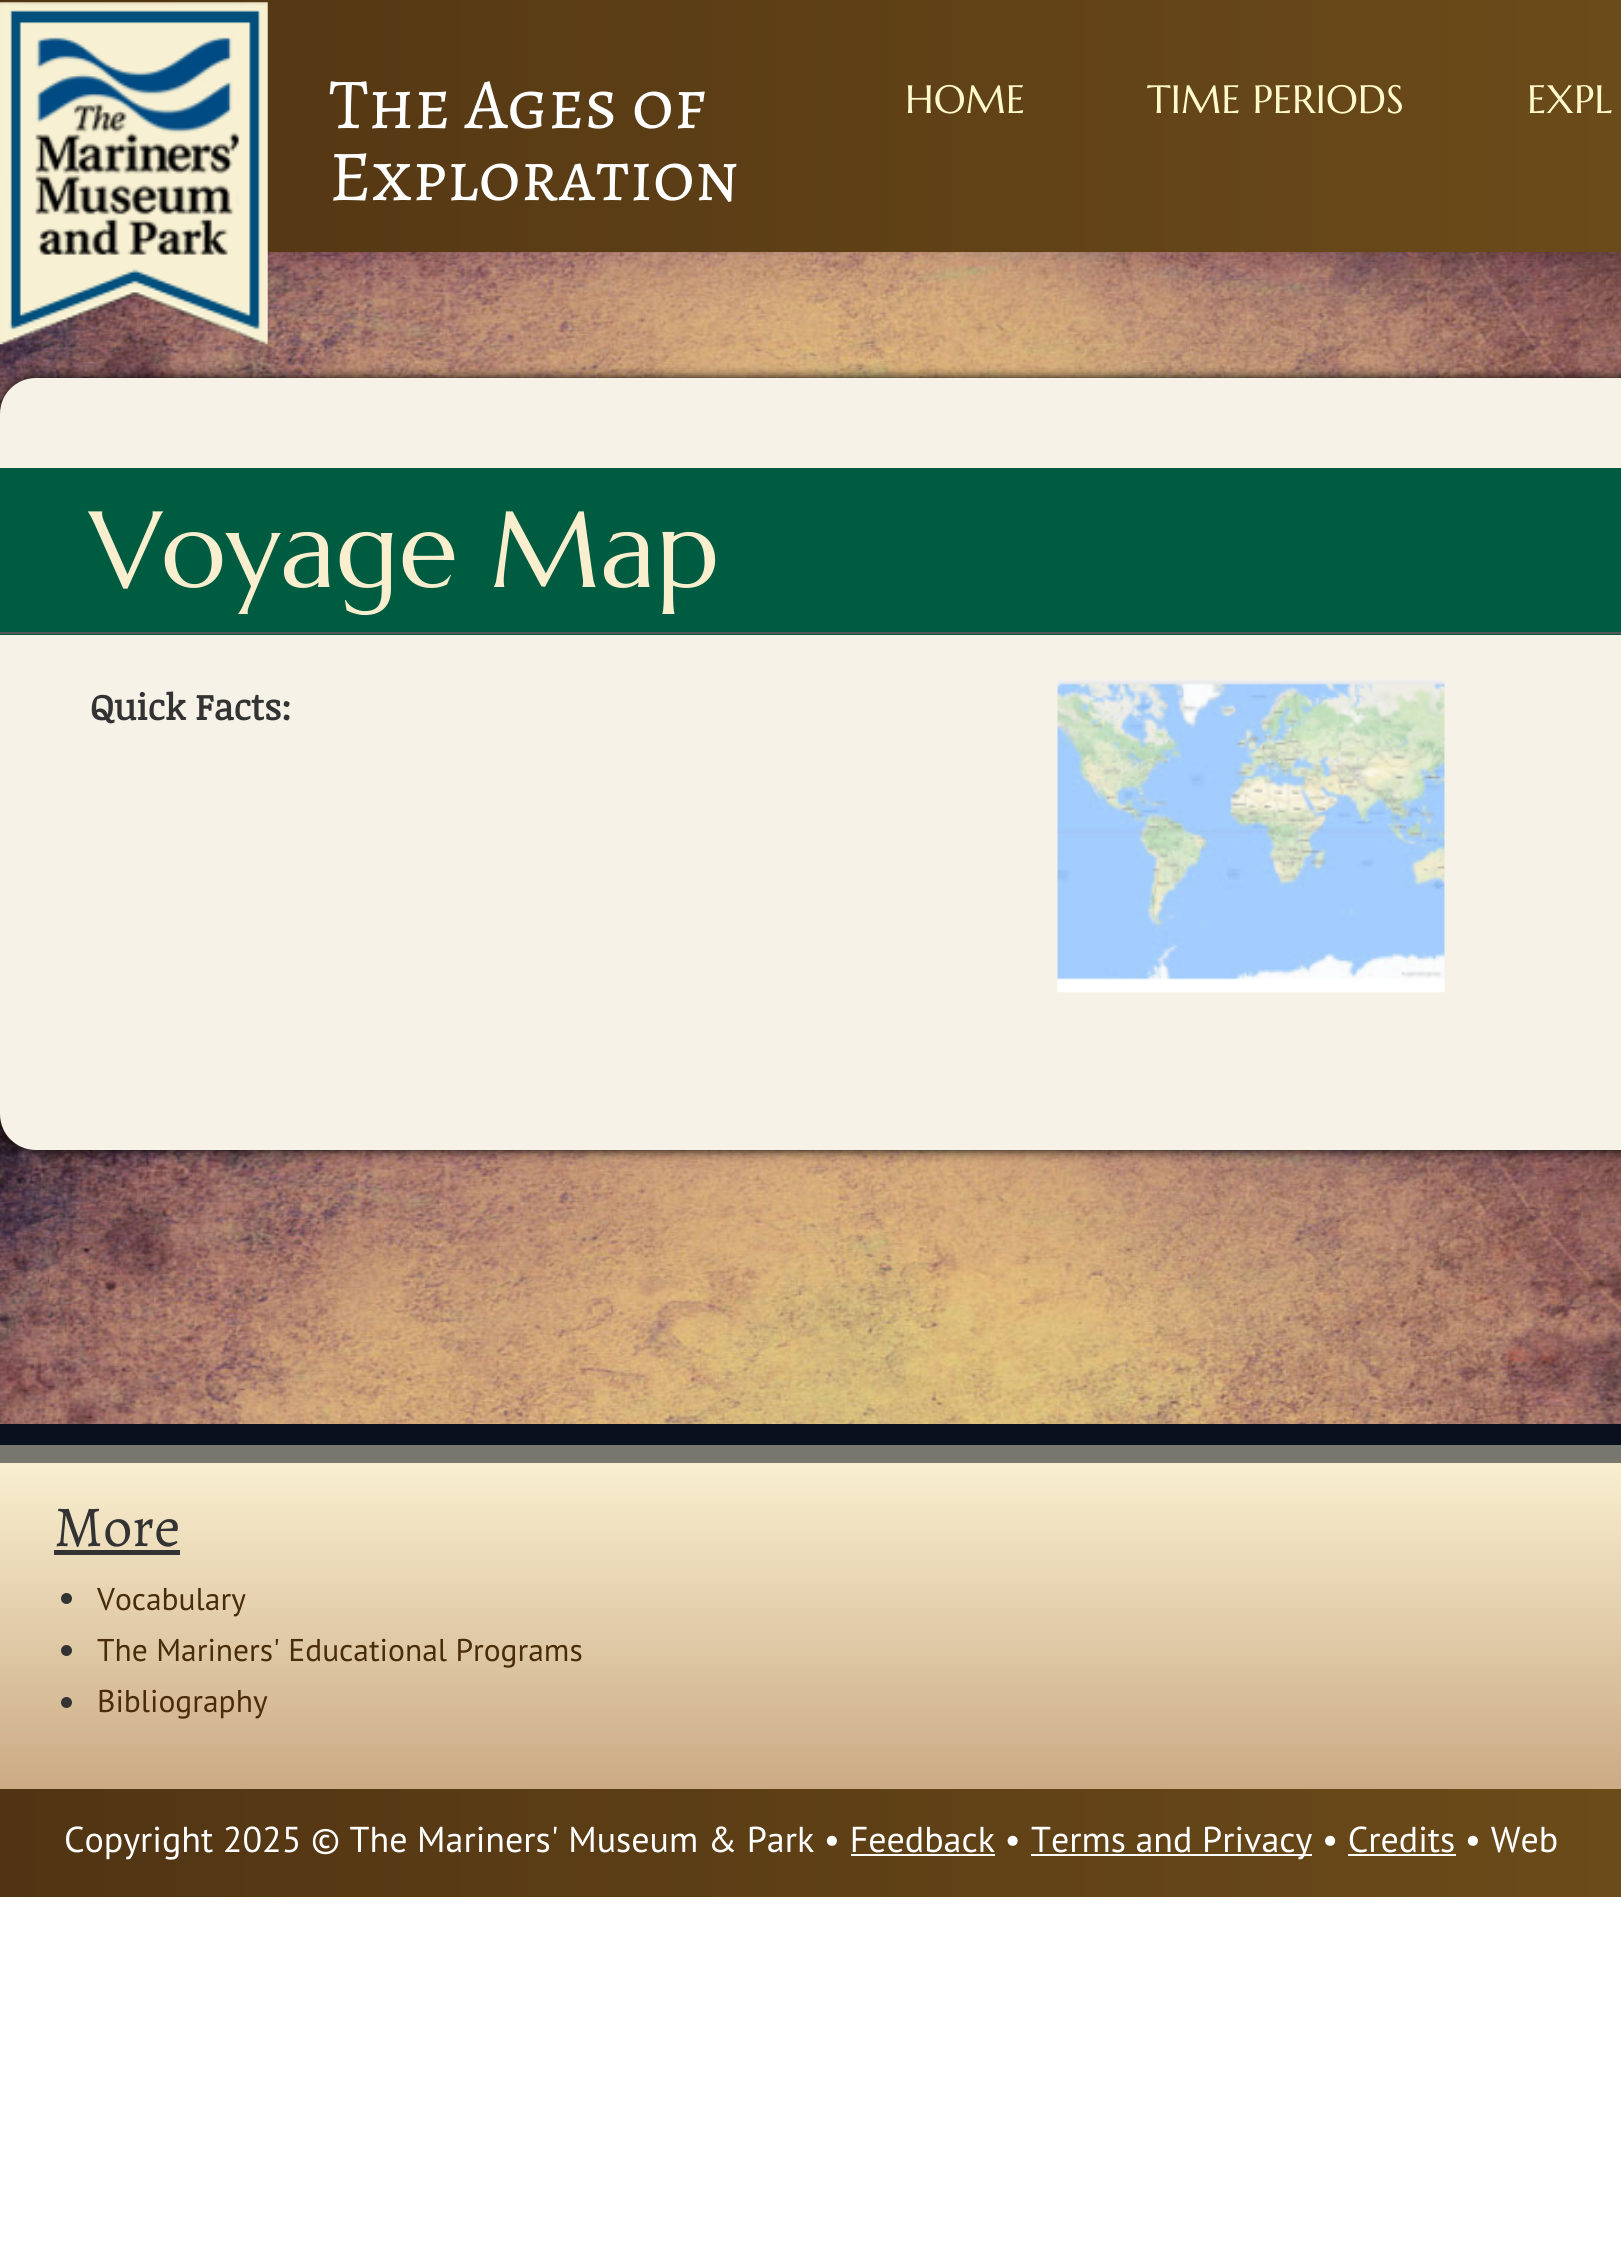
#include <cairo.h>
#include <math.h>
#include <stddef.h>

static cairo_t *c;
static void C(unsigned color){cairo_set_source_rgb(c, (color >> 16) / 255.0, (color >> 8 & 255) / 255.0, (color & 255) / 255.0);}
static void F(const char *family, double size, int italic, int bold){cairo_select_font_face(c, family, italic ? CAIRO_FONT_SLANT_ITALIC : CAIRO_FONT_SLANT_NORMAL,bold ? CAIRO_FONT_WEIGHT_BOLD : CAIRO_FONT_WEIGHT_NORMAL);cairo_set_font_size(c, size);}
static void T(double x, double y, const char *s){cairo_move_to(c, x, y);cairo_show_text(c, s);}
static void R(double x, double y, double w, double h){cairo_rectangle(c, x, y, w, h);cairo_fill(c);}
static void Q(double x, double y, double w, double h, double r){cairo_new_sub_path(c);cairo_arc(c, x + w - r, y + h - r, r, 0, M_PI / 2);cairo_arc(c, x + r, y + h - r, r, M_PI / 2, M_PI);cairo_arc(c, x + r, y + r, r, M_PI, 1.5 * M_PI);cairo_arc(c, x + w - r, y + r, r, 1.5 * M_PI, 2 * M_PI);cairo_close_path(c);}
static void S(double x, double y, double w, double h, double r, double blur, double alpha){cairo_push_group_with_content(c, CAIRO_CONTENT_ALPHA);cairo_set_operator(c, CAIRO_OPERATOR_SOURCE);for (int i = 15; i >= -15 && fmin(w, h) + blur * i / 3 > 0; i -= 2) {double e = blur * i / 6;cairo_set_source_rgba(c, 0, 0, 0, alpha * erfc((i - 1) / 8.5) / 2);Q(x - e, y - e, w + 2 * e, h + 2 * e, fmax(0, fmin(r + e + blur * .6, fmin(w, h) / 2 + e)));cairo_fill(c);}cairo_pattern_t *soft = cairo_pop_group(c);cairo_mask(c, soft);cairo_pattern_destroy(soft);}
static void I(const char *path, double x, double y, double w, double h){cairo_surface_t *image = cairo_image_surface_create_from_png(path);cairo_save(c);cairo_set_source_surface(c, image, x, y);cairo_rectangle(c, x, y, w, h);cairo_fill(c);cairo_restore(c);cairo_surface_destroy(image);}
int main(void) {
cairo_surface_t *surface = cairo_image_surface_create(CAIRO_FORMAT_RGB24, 1621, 2264);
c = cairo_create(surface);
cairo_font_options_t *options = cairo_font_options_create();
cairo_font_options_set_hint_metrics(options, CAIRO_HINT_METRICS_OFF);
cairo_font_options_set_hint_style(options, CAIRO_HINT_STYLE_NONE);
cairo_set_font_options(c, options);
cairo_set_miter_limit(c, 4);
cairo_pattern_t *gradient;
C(0xffffff);
cairo_paint(c);
gradient = cairo_pattern_create_linear(0,126,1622,126);
cairo_pattern_add_color_stop_rgba(gradient,0,0.318,0.204,0.075,1);
cairo_pattern_add_color_stop_rgba(gradient,1,0.42,0.294,0.098,1);
cairo_set_source(c,gradient);
cairo_pattern_destroy(gradient);
R(0,0,1621,252);
I("2.png",0,252,1621,1172);
I("1.png",0,2,268,343);
F("Alegreya SC",72,0,0);
C(0xffffff);
T(329,128,"The Ages of");
T(329,200,"Exploration");
F("Marcellus",39.5,0,0);
C(0xfff9cb);
T(905,113,"HOME");
T(1147,113,"TIME PERIODS");
T(1527,113,"EXPL");
C(0x0a0f1d);
R(0,1424,1621,21);
C(0x000000);
S(0,378,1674,772,36,5.5,1);
C(0xf7f2e7);
cairo_new_path(c);
cairo_move_to(c,36,378);
cairo_line_to(c,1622,378);
cairo_line_to(c,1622,1150);
cairo_line_to(c,36,1150);
cairo_curve_to(c,16,1150,0,1134,0,1114);
cairo_line_to(c,0,414);
cairo_curve_to(c,0,394,16,378,36,378);
cairo_close_path(c);
cairo_fill(c);
C(0x005c40);
R(0,468,1621,167);
C(0x575757);
R(0,632,1621,2);
F("Marcellus",108,0,0);
C(0xf9efcf);
T(90,587,"Voyage Map");
F("Noticia Text",36,0,1);
C(0x333333);
T(90,720,"Quick Facts:");
I("3.png",1057,679,388,314);
gradient = cairo_pattern_create_linear(811,1463,811,1789);
cairo_pattern_add_color_stop_rgba(gradient,0,0.976,0.937,0.812,1);
cairo_pattern_add_color_stop_rgba(gradient,1,0.796,0.667,0.518,1);
cairo_set_source(c,gradient);
cairo_pattern_destroy(gradient);
R(0,1463,1621,326);
C(0x777770);
R(0,1445,1621,18);
F("Alegreya",58,0,0);
C(0x333333);
T(54,1546,"More");
R(54,1550,126,5);
cairo_new_path(c);
cairo_arc(c,66.5,1598.5,5.5,0,2 * M_PI);
cairo_fill(c);
F("PT Sans",31.5,0,0);
C(0x492d08);
T(97,1610,"Vocabulary");
C(0x333333);
cairo_new_path(c);
cairo_arc(c,66.5,1650.5,5.5,0,2 * M_PI);
cairo_fill(c);
C(0x492d08);
T(97,1661,"The Mariners' Educational Programs");
C(0x333333);
cairo_new_path(c);
cairo_arc(c,66.5,1702.5,5.5,0,2 * M_PI);
cairo_fill(c);
C(0x492d08);
T(97,1712,"Bibliography");
gradient = cairo_pattern_create_linear(0,1843,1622,1843);
cairo_pattern_add_color_stop_rgba(gradient,0,0.318,0.204,0.075,1);
cairo_pattern_add_color_stop_rgba(gradient,1,0.42,0.294,0.098,1);
cairo_set_source(c,gradient);
cairo_pattern_destroy(gradient);
R(0,1789,1621,108);
F("PT Sans",36,0,0);
C(0xffffff);
T(64,1852,"Copyright 2025 © The Mariners' Museum & Park • Feedback •");
R(1031,1854,281,2);
T(1031,1852,"Terms and Privacy • Credits • Web");
R(851,1854,144,2);
R(1348,1854,108,2);
cairo_surface_write_to_png(surface, "o.png");
cairo_font_options_destroy(options);
cairo_destroy(c);
cairo_surface_destroy(surface);
return 0;
}
